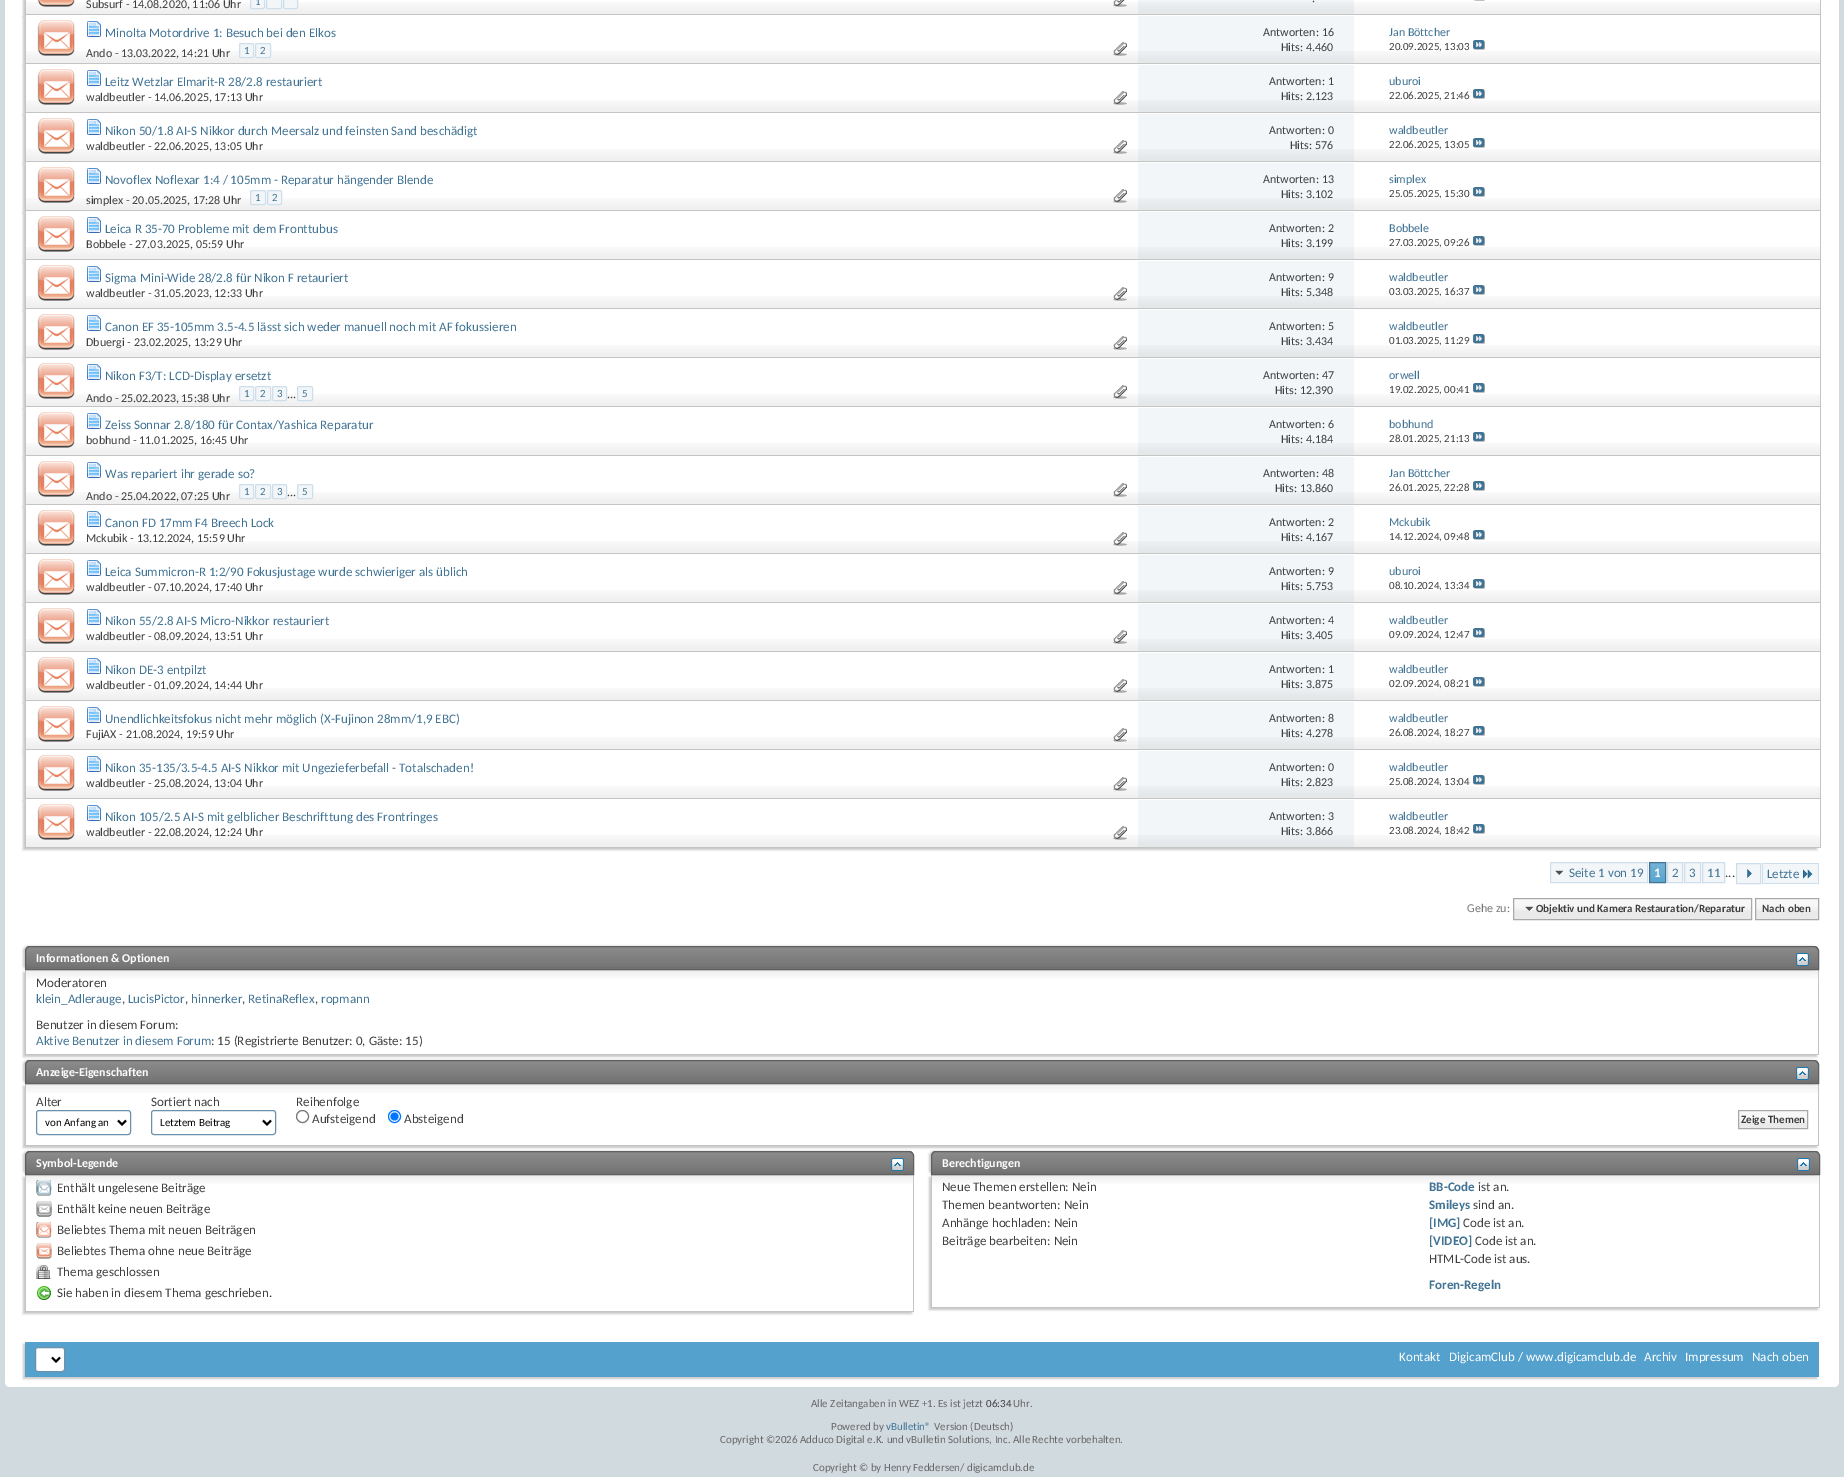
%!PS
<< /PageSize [1844 1477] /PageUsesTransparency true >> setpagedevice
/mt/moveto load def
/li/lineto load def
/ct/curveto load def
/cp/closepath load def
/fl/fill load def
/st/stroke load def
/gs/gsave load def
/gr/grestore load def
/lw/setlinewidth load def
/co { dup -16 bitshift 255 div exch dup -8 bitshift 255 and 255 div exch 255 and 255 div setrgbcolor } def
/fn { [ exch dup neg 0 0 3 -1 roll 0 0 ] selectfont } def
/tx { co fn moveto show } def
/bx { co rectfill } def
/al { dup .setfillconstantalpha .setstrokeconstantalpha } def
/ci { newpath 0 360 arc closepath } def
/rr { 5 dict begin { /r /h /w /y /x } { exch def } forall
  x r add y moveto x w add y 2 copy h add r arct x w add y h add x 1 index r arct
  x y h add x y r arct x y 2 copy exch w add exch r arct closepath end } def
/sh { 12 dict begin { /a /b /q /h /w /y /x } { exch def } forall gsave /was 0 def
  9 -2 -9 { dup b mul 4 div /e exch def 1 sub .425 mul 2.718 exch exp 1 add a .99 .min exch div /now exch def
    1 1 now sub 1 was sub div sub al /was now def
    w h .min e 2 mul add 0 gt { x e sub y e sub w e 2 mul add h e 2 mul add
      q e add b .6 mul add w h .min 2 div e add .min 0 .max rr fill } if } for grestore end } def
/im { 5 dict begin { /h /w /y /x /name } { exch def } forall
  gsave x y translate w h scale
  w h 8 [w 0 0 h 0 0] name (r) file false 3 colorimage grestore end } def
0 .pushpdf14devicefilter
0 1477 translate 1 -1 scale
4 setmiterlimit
0 0 1844 1477 16#D1DADF bx
16#FFFFFF co
5 -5 1834 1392 5 rr fl
gs
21 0 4 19 rectclip
16#C8C8C8 co
23 -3 1794 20 0 1 1 sh
gr
(media/1.raw) 26 2 1794 12 im
1820 0 1 15 16#C4C4C4 bx
25 14 1796 1 16#C4C4C4 bx
25 0 1 15 16#C4C4C4 bx
(media/2.raw) 37 0 38 7 im
16#F2F6F8 co
250.5 -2.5 14 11 1.5 rr gs fl gr
16#CEDFEB co
st
16#F2F6F8 co
266.5 -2.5 15 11 1.5 rr gs fl gr
16#CEDFEB co
st
16#F2F6F8 co
283.5 -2.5 14 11 1.5 rr gs fl gr
16#CEDFEB co
st
(media/3.raw) 1113 0 14 7 im
1138 0 216 14 16#F2F6F8 bx
(media/4.raw) 1138 2 216 12 im
(media/5.raw) 1473 0 12 1 im
16#C8C8C8 co
23 17 1794 49 0 1 1 sh
26 15 1793 48 16#FFFFFF bx
(media/1.raw) 26 51 1794 12 im
1820 15 1 49 16#C4C4C4 bx
25 63 1796 1 16#C4C4C4 bx
25 15 1 49 16#C4C4C4 bx
(media/6.raw) 37 20 38 36 im
(media/7.raw) 87 21 14 16 im
16#F2F6F8 co
239.5 43.5 14 14 1.5 rr gs fl gr
16#CEDFEB co
st
16#F2F6F8 co
255.5 43.5 15 14 1.5 rr gs fl gr
16#CEDFEB co
st
(media/8.raw) 1113 42 14 14 im
1138 16 216 47 16#F2F6F8 bx
(media/4.raw) 1138 51 216 12 im
(media/9.raw) 1473 40 12 10 im
16#C8C8C8 co
23 66 1794 49 0 1 1 sh
26 64 1793 48 16#FFFFFF bx
(media/1.raw) 26 100 1794 12 im
1820 64 1 49 16#C4C4C4 bx
25 112 1796 1 16#C4C4C4 bx
25 64 1 49 16#C4C4C4 bx
(media/6.raw) 37 69 38 36 im
(media/7.raw) 87 70 14 16 im
(media/8.raw) 1113 91 14 14 im
1138 65 216 47 16#F2F6F8 bx
(media/4.raw) 1138 100 216 12 im
(media/9.raw) 1473 89 12 10 im
16#C8C8C8 co
23 115 1794 49 0 1 1 sh
26 113 1793 48 16#FFFFFF bx
(media/1.raw) 26 149 1794 12 im
1820 113 1 49 16#C4C4C4 bx
25 161 1796 1 16#C4C4C4 bx
25 113 1 49 16#C4C4C4 bx
(media/6.raw) 37 118 38 36 im
(media/7.raw) 87 119 14 16 im
(media/8.raw) 1113 140 14 14 im
1138 114 216 47 16#F2F6F8 bx
(media/4.raw) 1138 149 216 12 im
(media/9.raw) 1473 138 12 10 im
16#C8C8C8 co
23 164 1794 49 0 1 1 sh
26 162 1793 48 16#FFFFFF bx
(media/1.raw) 26 198 1794 12 im
1820 162 1 49 16#C4C4C4 bx
25 210 1796 1 16#C4C4C4 bx
25 162 1 49 16#C4C4C4 bx
(media/6.raw) 37 167 38 36 im
(media/7.raw) 87 168 14 16 im
16#F2F6F8 co
250.5 190.5 15 14 1.5 rr gs fl gr
16#CEDFEB co
st
16#F2F6F8 co
267.5 190.5 14 14 1.5 rr gs fl gr
16#CEDFEB co
st
(media/8.raw) 1113 189 14 14 im
1138 163 216 47 16#F2F6F8 bx
(media/4.raw) 1138 198 216 12 im
(media/9.raw) 1473 187 12 10 im
16#C8C8C8 co
23 213 1794 49 0 1 1 sh
26 211 1793 48 16#FFFFFF bx
(media/1.raw) 26 247 1794 12 im
1820 211 1 49 16#C4C4C4 bx
25 259 1796 1 16#C4C4C4 bx
25 211 1 49 16#C4C4C4 bx
(media/6.raw) 37 216 38 36 im
(media/7.raw) 87 217 14 16 im
1138 212 216 47 16#F2F6F8 bx
(media/4.raw) 1138 247 216 12 im
(media/9.raw) 1473 236 12 10 im
16#C8C8C8 co
23 262 1794 49 0 1 1 sh
26 260 1793 48 16#FFFFFF bx
(media/1.raw) 26 296 1794 12 im
1820 260 1 49 16#C4C4C4 bx
25 308 1796 1 16#C4C4C4 bx
25 260 1 49 16#C4C4C4 bx
(media/6.raw) 37 265 38 36 im
(media/7.raw) 87 266 14 16 im
(media/8.raw) 1113 287 14 14 im
1138 261 216 47 16#F2F6F8 bx
(media/4.raw) 1138 296 216 12 im
(media/9.raw) 1473 285 12 10 im
16#C8C8C8 co
23 311 1794 49 0 1 1 sh
26 309 1793 48 16#FFFFFF bx
(media/1.raw) 26 345 1794 12 im
1820 309 1 49 16#C4C4C4 bx
25 357 1796 1 16#C4C4C4 bx
25 309 1 49 16#C4C4C4 bx
(media/6.raw) 37 314 38 36 im
(media/7.raw) 87 315 14 16 im
(media/8.raw) 1113 336 14 14 im
1138 310 216 47 16#F2F6F8 bx
(media/4.raw) 1138 345 216 12 im
(media/9.raw) 1473 334 12 10 im
16#C8C8C8 co
23 360 1794 49 0 1 1 sh
26 358 1793 48 16#FFFFFF bx
(media/1.raw) 26 394 1794 12 im
1820 358 1 49 16#C4C4C4 bx
25 406 1796 1 16#C4C4C4 bx
25 358 1 49 16#C4C4C4 bx
(media/6.raw) 37 363 38 36 im
(media/7.raw) 87 364 14 16 im
16#F2F6F8 co
239.5 386.5 14 14 1.5 rr gs fl gr
16#CEDFEB co
st
16#F2F6F8 co
255.5 386.5 15 14 1.5 rr gs fl gr
16#CEDFEB co
st
16#F2F6F8 co
272.5 386.5 14 14 1.5 rr gs fl gr
16#CEDFEB co
st
16#F2F6F8 co
297.5 386.5 15 14 1.5 rr gs fl gr
16#CEDFEB co
st
(media/8.raw) 1113 385 14 14 im
1138 359 216 47 16#F2F6F8 bx
(media/4.raw) 1138 394 216 12 im
(media/9.raw) 1473 383 12 10 im
16#C8C8C8 co
23 409 1794 49 0 1 1 sh
26 407 1793 48 16#FFFFFF bx
(media/1.raw) 26 443 1794 12 im
1820 407 1 49 16#C4C4C4 bx
25 455 1796 1 16#C4C4C4 bx
25 407 1 49 16#C4C4C4 bx
(media/6.raw) 37 412 38 36 im
(media/7.raw) 87 413 14 16 im
1138 408 216 47 16#F2F6F8 bx
(media/4.raw) 1138 443 216 12 im
(media/9.raw) 1473 432 12 10 im
16#C8C8C8 co
23 458 1794 49 0 1 1 sh
26 456 1793 48 16#FFFFFF bx
(media/1.raw) 26 492 1794 12 im
1820 456 1 49 16#C4C4C4 bx
25 504 1796 1 16#C4C4C4 bx
25 456 1 49 16#C4C4C4 bx
(media/6.raw) 37 461 38 36 im
(media/7.raw) 87 462 14 16 im
16#F2F6F8 co
239.5 484.5 14 14 1.5 rr gs fl gr
16#CEDFEB co
st
16#F2F6F8 co
255.5 484.5 15 14 1.5 rr gs fl gr
16#CEDFEB co
st
16#F2F6F8 co
272.5 484.5 14 14 1.5 rr gs fl gr
16#CEDFEB co
st
16#F2F6F8 co
297.5 484.5 15 14 1.5 rr gs fl gr
16#CEDFEB co
st
(media/8.raw) 1113 483 14 14 im
1138 457 216 47 16#F2F6F8 bx
(media/4.raw) 1138 492 216 12 im
(media/9.raw) 1473 481 12 10 im
16#C8C8C8 co
23 507 1794 49 0 1 1 sh
26 505 1793 48 16#FFFFFF bx
(media/1.raw) 26 541 1794 12 im
1820 505 1 49 16#C4C4C4 bx
25 553 1796 1 16#C4C4C4 bx
25 505 1 49 16#C4C4C4 bx
(media/6.raw) 37 510 38 36 im
(media/7.raw) 87 511 14 16 im
(media/8.raw) 1113 532 14 14 im
1138 506 216 47 16#F2F6F8 bx
(media/4.raw) 1138 541 216 12 im
(media/9.raw) 1473 530 12 10 im
16#C8C8C8 co
23 556 1794 49 0 1 1 sh
26 554 1793 48 16#FFFFFF bx
(media/1.raw) 26 590 1794 12 im
1820 554 1 49 16#C4C4C4 bx
25 602 1796 1 16#C4C4C4 bx
25 554 1 49 16#C4C4C4 bx
(media/6.raw) 37 559 38 36 im
(media/7.raw) 87 560 14 16 im
(media/8.raw) 1113 581 14 14 im
1138 555 216 47 16#F2F6F8 bx
(media/4.raw) 1138 590 216 12 im
(media/9.raw) 1473 579 12 10 im
16#C8C8C8 co
23 605 1794 49 0 1 1 sh
26 603 1793 48 16#FFFFFF bx
(media/1.raw) 26 639 1794 12 im
1820 603 1 49 16#C4C4C4 bx
25 651 1796 1 16#C4C4C4 bx
25 603 1 49 16#C4C4C4 bx
(media/6.raw) 37 608 38 36 im
(media/7.raw) 87 609 14 16 im
(media/8.raw) 1113 630 14 14 im
1138 604 216 47 16#F2F6F8 bx
(media/4.raw) 1138 639 216 12 im
(media/9.raw) 1473 628 12 10 im
16#C8C8C8 co
23 654 1794 49 0 1 1 sh
26 652 1793 48 16#FFFFFF bx
(media/1.raw) 26 688 1794 12 im
1820 652 1 49 16#C4C4C4 bx
25 700 1796 1 16#C4C4C4 bx
25 652 1 49 16#C4C4C4 bx
(media/6.raw) 37 657 38 36 im
(media/7.raw) 87 658 14 16 im
(media/8.raw) 1113 679 14 14 im
1138 653 216 47 16#F2F6F8 bx
(media/4.raw) 1138 688 216 12 im
(media/9.raw) 1473 677 12 10 im
16#C8C8C8 co
23 703 1794 49 0 1 1 sh
26 701 1793 48 16#FFFFFF bx
(media/1.raw) 26 737 1794 12 im
1820 701 1 49 16#C4C4C4 bx
25 749 1796 1 16#C4C4C4 bx
25 701 1 49 16#C4C4C4 bx
(media/6.raw) 37 706 38 36 im
(media/7.raw) 87 707 14 16 im
(media/8.raw) 1113 728 14 14 im
1138 702 216 47 16#F2F6F8 bx
(media/4.raw) 1138 737 216 12 im
(media/9.raw) 1473 726 12 10 im
16#C8C8C8 co
23 752 1794 49 0 1 1 sh
26 750 1793 48 16#FFFFFF bx
(media/1.raw) 26 786 1794 12 im
1820 750 1 49 16#C4C4C4 bx
25 798 1796 1 16#C4C4C4 bx
25 750 1 49 16#C4C4C4 bx
(media/6.raw) 37 755 38 36 im
(media/7.raw) 87 756 14 16 im
(media/8.raw) 1113 777 14 14 im
1138 751 216 47 16#F2F6F8 bx
(media/4.raw) 1138 786 216 12 im
(media/9.raw) 1473 775 12 10 im
16#C8C8C8 co
23 801 1794 49 0 1 1 sh
26 799 1793 48 16#FFFFFF bx
(media/1.raw) 26 835 1794 12 im
1820 799 1 49 16#C4C4C4 bx
25 847 1796 1 16#C4C4C4 bx
25 799 1 49 16#C4C4C4 bx
(media/6.raw) 37 804 38 36 im
(media/7.raw) 87 805 14 16 im
(media/8.raw) 1113 826 14 14 im
1138 800 216 47 16#F2F6F8 bx
(media/4.raw) 1138 835 216 12 im
(media/9.raw) 1473 824 12 10 im
1551 863 96 19 16#F2F6F8 bx
(media/10.raw) 1555 870 9 6 im
16#CEDFEB co
1550.5 862.5 97 20 rectstroke
1650 863 15 19 16#54A1CD bx
(media/11.raw) 1650 863 15 19 im
16#417394 co
1649.5 862.5 16 20 rectstroke
16#F2F6F8 co
1667.5 862.5 mt 1682.5 862.5 li 1682.5 882.5 li 1667.5 882.5 li cp gs fl gr
16#CEDFEB co
st
16#F2F6F8 co
1684.5 862.5 mt 1700.5 862.5 li 1700.5 882.5 li 1684.5 882.5 li cp gs fl gr
16#CEDFEB co
st
16#F2F6F8 co
1702.5 862.5 mt 1724.5 862.5 li 1724.5 882.5 li 1702.5 882.5 li cp gs fl gr
16#CEDFEB co
st
16#F2F6F8 co
1736.5 863.5 mt 1760.5 863.5 li 1760.5 883.5 li 1736.5 883.5 li cp gs fl gr
16#CEDFEB co
st
(media/12.raw) 1747 869 5 9 im
1763 864 55 19 16#F2F6F8 bx
1762 863 57 1 16#CEDFEB bx
1762 883 37 1 16#CEDFEB bx
1762 863 1 21 16#CEDFEB bx
1818 863 1 21 16#CEDFEB bx
1799 883 20 1 16#CEDFEB bx
(media/13.raw) 1803 869 10 10 im
1514 899 237 20 16#E9E9E9 bx
(media/14.raw) 1514 899 237 12 im
1756 899 62 20 16#E9E9E9 bx
(media/15.raw) 1756 899 62 12 im
16#A8A8A8 co
1513.5 898.5 238 21 rectstroke
(media/16.raw) 1525 906 9 6 im
1755.5 898.5 63 21 rectstroke
gs
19 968 mt 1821 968 li 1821 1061 li 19 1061 li cp 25 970 mt 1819 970 li 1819 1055 li 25 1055 li cp eoclip newpath
16#C8C8C8 co
23 972 1794 85 0 1 1 sh
gr
(media/19.raw) 26 970 1792 9 im
1818 970 1 85 16#C4C4C4 bx
25 1054 1794 1 16#C4C4C4 bx
25 970 1 85 16#C4C4C4 bx
16#C8C8C8 co
23 946 1794 24 5 1 1 sh
16#707070 co
30 946 mt 1814 946 li 1817 946 1819 948 1819 951 ct 1819 970 li 25 970 li 25 951 li 25 948 27 946 30 946 ct cp fl
(media/17.raw) 25 947 1794 20 im
16#606060 co
30 946.5 mt 1814 946.5 li 1816.5 946.5 1818.5 948.5 1818.5 951 ct 1818.5 969.5 li 25.5 969.5 li 25.5 951 li 25.5 948.5 27.5 946.5 30 946.5 ct cp st
(media/18.raw) 1796 953 13 13 im
gs
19 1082 mt 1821 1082 li 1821 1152 li 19 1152 li cp 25 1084 mt 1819 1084 li 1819 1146 li 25 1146 li cp eoclip newpath
16#C8C8C8 co
23 1086 1794 62 0 1 1 sh
gr
(media/19.raw) 26 1084 1792 9 im
1818 1084 1 62 16#C4C4C4 bx
25 1145 1794 1 16#C4C4C4 bx
25 1084 1 62 16#C4C4C4 bx
16#C8C8C8 co
23 1060 1794 24 5 1 1 sh
16#707070 co
30 1060 mt 1814 1060 li 1817 1060 1819 1062 1819 1065 ct 1819 1084 li 25 1084 li 25 1065 li 25 1062 27 1060 30 1060 ct cp fl
(media/17.raw) 25 1061 1794 20 im
16#606060 co
30 1060.5 mt 1814 1060.5 li 1816.5 1060.5 1818.5 1062.5 1818.5 1065 ct 1818.5 1083.5 li 25.5 1083.5 li 25.5 1065 li 25.5 1062.5 27.5 1060.5 30 1060.5 ct cp st
(media/18.raw) 1796 1067 13 13 im
16#6B91AB co
36.5 1110.5 94 24 2.5 rr st
16#000000 co
2 lw
118 1120.5 mt 122 1124.5 li 126 1120.5 li st
16#6B91AB co
1 lw
151.5 1110.5 124 24 2.5 rr st
16#000000 co
2 lw
263 1120.5 mt 267 1124.5 li 271 1120.5 li st
16#767676 co
1 lw
302.5 1116.5 6 ci st
16#0075FF co
394.5 1116.5 6 ci st
394.5 1116.5 4 ci fl
1739 1111 68 17 16#E9E9E9 bx
(media/20.raw) 1739 1111 68 12 im
16#A8A8A8 co
1738.5 1110.5 69 18 rectstroke
gs
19 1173 mt 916 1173 li 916 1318 li 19 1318 li cp 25 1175 mt 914 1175 li 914 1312 li 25 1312 li cp eoclip newpath
16#C8C8C8 co
23 1177 889 137 0 1 1 sh
gr
(media/22.raw) 26 1175 887 9 im
913 1175 1 137 16#C4C4C4 bx
25 1311 889 1 16#C4C4C4 bx
25 1175 1 137 16#C4C4C4 bx
16#C8C8C8 co
23 1151 889 24 5 1 1 sh
16#707070 co
30 1151 mt 909 1151 li 912 1151 914 1153 914 1156 ct 914 1175 li 25 1175 li 25 1156 li 25 1153 27 1151 30 1151 ct cp fl
(media/21.raw) 25 1152 889 20 im
16#606060 co
30 1151.5 mt 909 1151.5 li 911.5 1151.5 913.5 1153.5 913.5 1156 ct 913.5 1174.5 li 25.5 1174.5 li 25.5 1156 li 25.5 1153.5 27.5 1151.5 30 1151.5 ct cp st
(media/18.raw) 891 1158 13 13 im
(media/23.raw) 36 1180 16 16 im
(media/24.raw) 36 1201 16 16 im
(media/25.raw) 36 1222 16 16 im
(media/26.raw) 36 1243 16 16 im
(media/27.raw) 36 1264 16 15 im
(media/28.raw) 37 1286 14 14 im
gs
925 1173 mt 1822 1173 li 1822 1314 li 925 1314 li cp 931 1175 mt 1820 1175 li 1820 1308 li 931 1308 li cp eoclip newpath
16#C8C8C8 co
929 1177 889 133 0 1 1 sh
gr
(media/22.raw) 932 1175 887 9 im
1819 1175 1 133 16#C4C4C4 bx
931 1307 889 1 16#C4C4C4 bx
931 1175 1 133 16#C4C4C4 bx
16#C8C8C8 co
929 1151 889 24 5 1 1 sh
16#707070 co
936 1151 mt 1815 1151 li 1818 1151 1820 1153 1820 1156 ct 1820 1175 li 931 1175 li 931 1156 li 931 1153 933 1151 936 1151 ct cp fl
(media/21.raw) 931 1152 889 20 im
16#606060 co
936 1151.5 mt 1815 1151.5 li 1817.5 1151.5 1819.5 1153.5 1819.5 1156 ct 1819.5 1174.5 li 931.5 1174.5 li 931.5 1156 li 931.5 1153.5 933.5 1151.5 936 1151.5 ct cp st
(media/18.raw) 1797 1158 13 13 im
16#C8C8C8 co
23 1344 1794 35 0 1 1 sh
25 1342 1794 35 16#54A1CD bx
16#FFFFFF co
35.5 1347.5 29 24 2.5 rr gs fl gr
16#6B91AB co
st
16#000000 co
2 lw
52 1357.5 mt 56 1361.5 li 60 1357.5 li st
(Subsurf - 14.08.2020, 11:06 Uhr) 86 8 /Carlito-Regular 12 16#3E3E3E tx
(1) 255 5 /Carlito-Regular 11 16#417394 tx
(.) 1312 2 /Carlito-Regular 12 16#3E3E3E tx
(Minolta Motordrive 1: Besuch bei den Elkos) 105 37 /Carlito-Regular 13 16#417394 tx
(Ando - 13.03.2022, 14:21 Uhr) 86 57 /Carlito-Regular 12 16#3E3E3E tx
(1) 244 54 /Carlito-Regular 11 16#417394 tx
(2) 260 54 /Carlito-Regular 11 16#417394 tx
(Antworten: 16) 1263 36 /Carlito-Regular 12 16#3E3E3E tx
(Hits: 4.460) 1281 51 /Carlito-Regular 12 16#3E3E3E tx
(Jan Böttcher) 1389 36 /Carlito-Regular 12 16#417394 tx
(20.09.2025, 13:03) 1389 50 /Carlito-Regular 11 16#3E3E3E tx
(Leitz Wetzlar Elmarit-R 28/2.8 restauriert) 105 86 /Carlito-Regular 13 16#417394 tx
(waldbeutler - 14.06.2025, 17:13 Uhr) 86 101 /Carlito-Regular 12 16#3E3E3E tx
(Antworten: 1) 1269 85 /Carlito-Regular 12 16#3E3E3E tx
(Hits: 2.123) 1281 100 /Carlito-Regular 12 16#3E3E3E tx
(uburoi) 1389 85 /Carlito-Regular 12 16#417394 tx
(22.06.2025, 21:46) 1389 99 /Carlito-Regular 11 16#3E3E3E tx
(Nikon 50/1.8 AI-S Nikkor durch Meersalz und feinsten Sand beschädigt) 105 135 /Carlito-Regular 13 16#417394 tx
(waldbeutler - 22.06.2025, 13:05 Uhr) 86 150 /Carlito-Regular 12 16#3E3E3E tx
(Antworten: 0) 1269 134 /Carlito-Regular 12 16#3E3E3E tx
(Hits: 576) 1290 149 /Carlito-Regular 12 16#3E3E3E tx
(waldbeutler) 1389 134 /Carlito-Regular 12 16#417394 tx
(22.06.2025, 13:05) 1389 148 /Carlito-Regular 11 16#3E3E3E tx
(Novoflex Noflexar 1:4 / 105mm - Reparatur hängender Blende) 105 184 /Carlito-Regular 13 16#417394 tx
(simplex - 20.05.2025, 17:28 Uhr) 86 204 /Carlito-Regular 12 16#3E3E3E tx
(1) 255 201 /Carlito-Regular 11 16#417394 tx
(2) 272 201 /Carlito-Regular 11 16#417394 tx
(Antworten: 13) 1263 183 /Carlito-Regular 12 16#3E3E3E tx
(Hits: 3.102) 1281 198 /Carlito-Regular 12 16#3E3E3E tx
(simplex) 1389 183 /Carlito-Regular 12 16#417394 tx
(25.05.2025, 15:30) 1389 197 /Carlito-Regular 11 16#3E3E3E tx
(Leica R 35-70 Probleme mit dem Fronttubus) 105 233 /Carlito-Regular 13 16#417394 tx
(Bobbele - 27.03.2025, 05:59 Uhr) 86 248 /Carlito-Regular 12 16#3E3E3E tx
(Antworten: 2) 1269 232 /Carlito-Regular 12 16#3E3E3E tx
(Hits: 3.199) 1281 247 /Carlito-Regular 12 16#3E3E3E tx
(Bobbele) 1389 232 /Carlito-Regular 12 16#417394 tx
(27.03.2025, 09:26) 1389 246 /Carlito-Regular 11 16#3E3E3E tx
(Sigma Mini-Wide 28/2.8 für Nikon F retauriert) 105 282 /Carlito-Regular 13 16#417394 tx
(waldbeutler - 31.05.2023, 12:33 Uhr) 86 297 /Carlito-Regular 12 16#3E3E3E tx
(Antworten: 9) 1269 281 /Carlito-Regular 12 16#3E3E3E tx
(Hits: 5.348) 1281 296 /Carlito-Regular 12 16#3E3E3E tx
(waldbeutler) 1389 281 /Carlito-Regular 12 16#417394 tx
(03.03.2025, 16:37) 1389 295 /Carlito-Regular 11 16#3E3E3E tx
(Canon EF 35-105mm 3.5-4.5 lässt sich weder manuell noch mit AF fokussieren) 105 331 /Carlito-Regular 13 16#417394 tx
(Dbuergi - 23.02.2025, 13:29 Uhr) 86 346 /Carlito-Regular 12 16#3E3E3E tx
(Antworten: 5) 1269 330 /Carlito-Regular 12 16#3E3E3E tx
(Hits: 3.434) 1281 345 /Carlito-Regular 12 16#3E3E3E tx
(waldbeutler) 1389 330 /Carlito-Regular 12 16#417394 tx
(01.03.2025, 11:29) 1389 344 /Carlito-Regular 11 16#3E3E3E tx
(Nikon F3/T: LCD-Display ersetzt) 105 380 /Carlito-Regular 13 16#417394 tx
(Ando - 25.02.2023, 15:38 Uhr) 86 402 /Carlito-Regular 12 16#3E3E3E tx
(1) 244 397 /Carlito-Regular 11 16#417394 tx
(2) 260 397 /Carlito-Regular 11 16#417394 tx
(3) 277 397 /Carlito-Regular 11 16#417394 tx
(...) 287 398 /Carlito-Regular 12 16#3E3E3E tx
(5) 302 397 /Carlito-Regular 11 16#417394 tx
(Antworten: 47) 1263 379 /Carlito-Regular 12 16#3E3E3E tx
(Hits: 12.390) 1275 394 /Carlito-Regular 12 16#3E3E3E tx
(orwell) 1389 379 /Carlito-Regular 12 16#417394 tx
(19.02.2025, 00:41) 1389 393 /Carlito-Regular 11 16#3E3E3E tx
(Zeiss Sonnar 2.8/180 für Contax/Yashica Reparatur) 105 429 /Carlito-Regular 13 16#417394 tx
(bobhund - 11.01.2025, 16:45 Uhr) 86 444 /Carlito-Regular 12 16#3E3E3E tx
(Antworten: 6) 1269 428 /Carlito-Regular 12 16#3E3E3E tx
(Hits: 4.184) 1281 443 /Carlito-Regular 12 16#3E3E3E tx
(bobhund) 1389 428 /Carlito-Regular 12 16#417394 tx
(28.01.2025, 21:13) 1389 442 /Carlito-Regular 11 16#3E3E3E tx
(Was repariert ihr gerade so?) 105 478 /Carlito-Regular 13 16#417394 tx
(Ando - 25.04.2022, 07:25 Uhr) 86 500 /Carlito-Regular 12 16#3E3E3E tx
(1) 244 495 /Carlito-Regular 11 16#417394 tx
(2) 260 495 /Carlito-Regular 11 16#417394 tx
(3) 277 495 /Carlito-Regular 11 16#417394 tx
(...) 287 496 /Carlito-Regular 12 16#3E3E3E tx
(5) 302 495 /Carlito-Regular 11 16#417394 tx
(Antworten: 48) 1263 477 /Carlito-Regular 12 16#3E3E3E tx
(Hits: 13.860) 1275 492 /Carlito-Regular 12 16#3E3E3E tx
(Jan Böttcher) 1389 477 /Carlito-Regular 12 16#417394 tx
(26.01.2025, 22:28) 1389 491 /Carlito-Regular 11 16#3E3E3E tx
(Canon FD 17mm F4 Breech Lock) 105 527 /Carlito-Regular 13 16#417394 tx
(Mckubik - 13.12.2024, 15:59 Uhr) 86 542 /Carlito-Regular 12 16#3E3E3E tx
(Antworten: 2) 1269 526 /Carlito-Regular 12 16#3E3E3E tx
(Hits: 4.167) 1281 541 /Carlito-Regular 12 16#3E3E3E tx
(Mckubik) 1389 526 /Carlito-Regular 12 16#417394 tx
(14.12.2024, 09:48) 1389 540 /Carlito-Regular 11 16#3E3E3E tx
(Leica Summicron-R 1:2/90 Fokusjustage wurde schwieriger als üblich) 105 576 /Carlito-Regular 13 16#417394 tx
(waldbeutler - 07.10.2024, 17:40 Uhr) 86 591 /Carlito-Regular 12 16#3E3E3E tx
(Antworten: 9) 1269 575 /Carlito-Regular 12 16#3E3E3E tx
(Hits: 5.753) 1281 590 /Carlito-Regular 12 16#3E3E3E tx
(uburoi) 1389 575 /Carlito-Regular 12 16#417394 tx
(08.10.2024, 13:34) 1389 589 /Carlito-Regular 11 16#3E3E3E tx
(Nikon 55/2.8 AI-S Micro-Nikkor restauriert) 105 625 /Carlito-Regular 13 16#417394 tx
(waldbeutler - 08.09.2024, 13:51 Uhr) 86 640 /Carlito-Regular 12 16#3E3E3E tx
(Antworten: 4) 1269 624 /Carlito-Regular 12 16#3E3E3E tx
(Hits: 3.405) 1281 639 /Carlito-Regular 12 16#3E3E3E tx
(waldbeutler) 1389 624 /Carlito-Regular 12 16#417394 tx
(09.09.2024, 12:47) 1389 638 /Carlito-Regular 11 16#3E3E3E tx
(Nikon DE-3 entpilzt) 105 674 /Carlito-Regular 13 16#417394 tx
(waldbeutler - 01.09.2024, 14:44 Uhr) 86 689 /Carlito-Regular 12 16#3E3E3E tx
(Antworten: 1) 1269 673 /Carlito-Regular 12 16#3E3E3E tx
(Hits: 3.875) 1281 688 /Carlito-Regular 12 16#3E3E3E tx
(waldbeutler) 1389 673 /Carlito-Regular 12 16#417394 tx
(02.09.2024, 08:21) 1389 687 /Carlito-Regular 11 16#3E3E3E tx
(Unendlichkeitsfokus nicht mehr möglich \(X-Fujinon 28mm/1,9 EBC\)) 105 723 /Carlito-Regular 13 16#417394 tx
(FujiAX - 21.08.2024, 19:59 Uhr) 86 738 /Carlito-Regular 12 16#3E3E3E tx
(Antworten: 8) 1269 722 /Carlito-Regular 12 16#3E3E3E tx
(Hits: 4.278) 1281 737 /Carlito-Regular 12 16#3E3E3E tx
(waldbeutler) 1389 722 /Carlito-Regular 12 16#417394 tx
(26.08.2024, 18:27) 1389 736 /Carlito-Regular 11 16#3E3E3E tx
(Nikon 35-135/3.5-4.5 AI-S Nikkor mit Ungezieferbefall - Totalschaden!) 105 772 /Carlito-Regular 13 16#417394 tx
(waldbeutler - 25.08.2024, 13:04 Uhr) 86 787 /Carlito-Regular 12 16#3E3E3E tx
(Antworten: 0) 1269 771 /Carlito-Regular 12 16#3E3E3E tx
(Hits: 2.823) 1281 786 /Carlito-Regular 12 16#3E3E3E tx
(waldbeutler) 1389 771 /Carlito-Regular 12 16#417394 tx
(25.08.2024, 13:04) 1389 785 /Carlito-Regular 11 16#3E3E3E tx
(Nikon 105/2.5 AI-S mit gelblicher Beschrifttung des Frontringes) 105 821 /Carlito-Regular 13 16#417394 tx
(waldbeutler - 22.08.2024, 12:24 Uhr) 86 836 /Carlito-Regular 12 16#3E3E3E tx
(Antworten: 3) 1269 820 /Carlito-Regular 12 16#3E3E3E tx
(Hits: 3.866) 1281 835 /Carlito-Regular 12 16#3E3E3E tx
(waldbeutler) 1389 820 /Carlito-Regular 12 16#417394 tx
(23.08.2024, 18:42) 1389 834 /Carlito-Regular 11 16#3E3E3E tx
(Seite 1 von 19) 1569 877 /Carlito-Regular 13 16#417394 tx
(1) 1654 877 /Carlito-Bold 13 16#FFFFFF tx
(2) 1672 877 /Carlito-Regular 13 16#417394 tx
(3) 1689 877 /Carlito-Regular 13 16#417394 tx
(11) 1707 877 /Carlito-Regular 13 16#417394 tx
(...) 1725 877 /Carlito-Regular 13 16#3E3E3E tx
(Letzte) 1767 878 /Carlito-Regular 13 16#417394 tx
(Gehe zu:) 1467 912 /Carlito-Regular 12 16#777777 tx
(Objektiv und Kamera Restauration/Reparatur) 1536 912 /Carlito-Bold 11 16#3E3E3E tx
(Nach oben) 1762 912 /Carlito-Bold 11 16#3E3E3E tx
(Informationen & Optionen) 36 962 /Carlito-Bold 12 16#FFFFFF tx
(Moderatoren) 36 987 /Carlito-Regular 13 16#3E3E3E tx
(klein_Adlerauge) 36 1003 /Carlito-Regular 13 16#417394 tx
(,) 122 1003 /Carlito-Regular 13 16#3E3E3E tx
(LucisPictor) 128 1003 /Carlito-Regular 13 16#417394 tx
(,) 185 1003 /Carlito-Regular 13 16#3E3E3E tx
(hinnerker) 191 1003 /Carlito-Regular 13 16#417394 tx
(,) 242 1003 /Carlito-Regular 13 16#3E3E3E tx
(RetinaReflex) 248 1003 /Carlito-Regular 13 16#417394 tx
(,) 315 1003 /Carlito-Regular 13 16#3E3E3E tx
(ropmann) 321 1003 /Carlito-Regular 13 16#417394 tx
(Benutzer in diesem Forum:) 36 1029 /Carlito-Regular 13 16#3E3E3E tx
(Aktive Benutzer in diesem Forum) 36 1045 /Carlito-Regular 13 16#417394 tx
(: 15 \(Registrierte Benutzer: 0, Gäste: 15\)) 211 1045 /Carlito-Regular 13 16#3E3E3E tx
(Anzeige-Eigenschaften) 36 1076 /Carlito-Bold 12 16#FFFFFF tx
(Alter) 36 1106 /Carlito-Regular 13 16#3E3E3E tx
(von Anfang an) 45 1126 /Carlito-Regular 11 16#000000 tx
(Sortiert nach) 151 1106 /Carlito-Regular 13 16#3E3E3E tx
(Letztem Beitrag) 160 1126 /Carlito-Regular 11 16#000000 tx
(Reihenfolge) 296 1106 /Carlito-Regular 13 16#3E3E3E tx
(Aufsteigend) 312 1123 /Carlito-Regular 13 16#3E3E3E tx
(Absteigend) 404 1123 /Carlito-Regular 13 16#3E3E3E tx
(Zeige Themen) 1741 1123 /Carlito-Bold 11 16#3E3E3E tx
(Symbol-Legende) 36 1167 /Carlito-Bold 12 16#FFFFFF tx
(Enthält ungelesene Beiträge) 57 1192 /Carlito-Regular 13 16#3E3E3E tx
(Enthält keine neuen Beiträge) 57 1213 /Carlito-Regular 13 16#3E3E3E tx
(Beliebtes Thema mit neuen Beiträgen) 57 1234 /Carlito-Regular 13 16#3E3E3E tx
(Beliebtes Thema ohne neue Beiträge) 57 1255 /Carlito-Regular 13 16#3E3E3E tx
(Thema geschlossen) 57 1276 /Carlito-Regular 13 16#3E3E3E tx
(Sie haben in diesem Thema geschrieben.) 57 1297 /Carlito-Regular 13 16#3E3E3E tx
(Berechtigungen) 942 1167 /Carlito-Bold 12 16#FFFFFF tx
(Neue Themen erstellen: Nein) 942 1191 /Carlito-Regular 13 16#3E3E3E tx
(Themen beantworten: Nein) 942 1209 /Carlito-Regular 13 16#3E3E3E tx
(Anhänge hochladen: Nein) 942 1227 /Carlito-Regular 13 16#3E3E3E tx
(Beiträge bearbeiten: Nein) 942 1245 /Carlito-Regular 13 16#3E3E3E tx
(BB-Code) 1429 1191 /Carlito-Bold 13 16#417394 tx
(ist an.) 1478 1191 /Carlito-Regular 13 16#3E3E3E tx
(Smileys) 1429 1209 /Carlito-Bold 13 16#417394 tx
(sind an.) 1473 1209 /Carlito-Regular 13 16#3E3E3E tx
([IMG]) 1429 1227 /Carlito-Bold 13 16#417394 tx
(Code ist an.) 1463 1227 /Carlito-Regular 13 16#3E3E3E tx
([VIDEO]) 1429 1245 /Carlito-Bold 13 16#417394 tx
(Code ist an.) 1475 1245 /Carlito-Regular 13 16#3E3E3E tx
(HTML-Code ist aus.) 1429 1263 /Carlito-Regular 13 16#3E3E3E tx
(Foren-Regeln) 1429 1289 /Carlito-Bold 13 16#417394 tx
(Kontakt) 1399 1361 /Carlito-Regular 13 16#FFFFFF tx
(DigicamClub / www.digicamclub.de) 1449 1361 /Carlito-Regular 13 16#FFFFFF tx
(Archiv) 1644 1361 /Carlito-Regular 13 16#FFFFFF tx
(Impressum) 1685 1361 /Carlito-Regular 13 16#FFFFFF tx
(Nach oben) 1752 1361 /Carlito-Regular 13 16#FFFFFF tx
(Alle Zeitangaben in WEZ +1. Es ist jetzt) 811 1407 /Carlito-Regular 11 16#666666 tx
(06:34) 986 1407 /Carlito-Regular 11 16#3E3E3E tx
(Uhr.) 1013 1407 /Carlito-Regular 11 16#666666 tx
(Powered by) 831 1430 /Carlito-Regular 11 16#666666 tx
(vBulletin®) 886 1430 /Carlito-Regular 11 16#417394 tx
(Version \(Deutsch\)) 934 1430 /Carlito-Regular 11 16#666666 tx
(Copyright ©2026 Adduco Digital e.K. und vBulletin Solutions, Inc. Alle Rechte vorbehalten.) 720 1443 /Carlito-Regular 11 16#666666 tx
(Copyright © by Henry Feddersen/ digicamclub.de) 813 1471 /Carlito-Regular 11 16#666666 tx
.poppdf14devicefilter showpage
